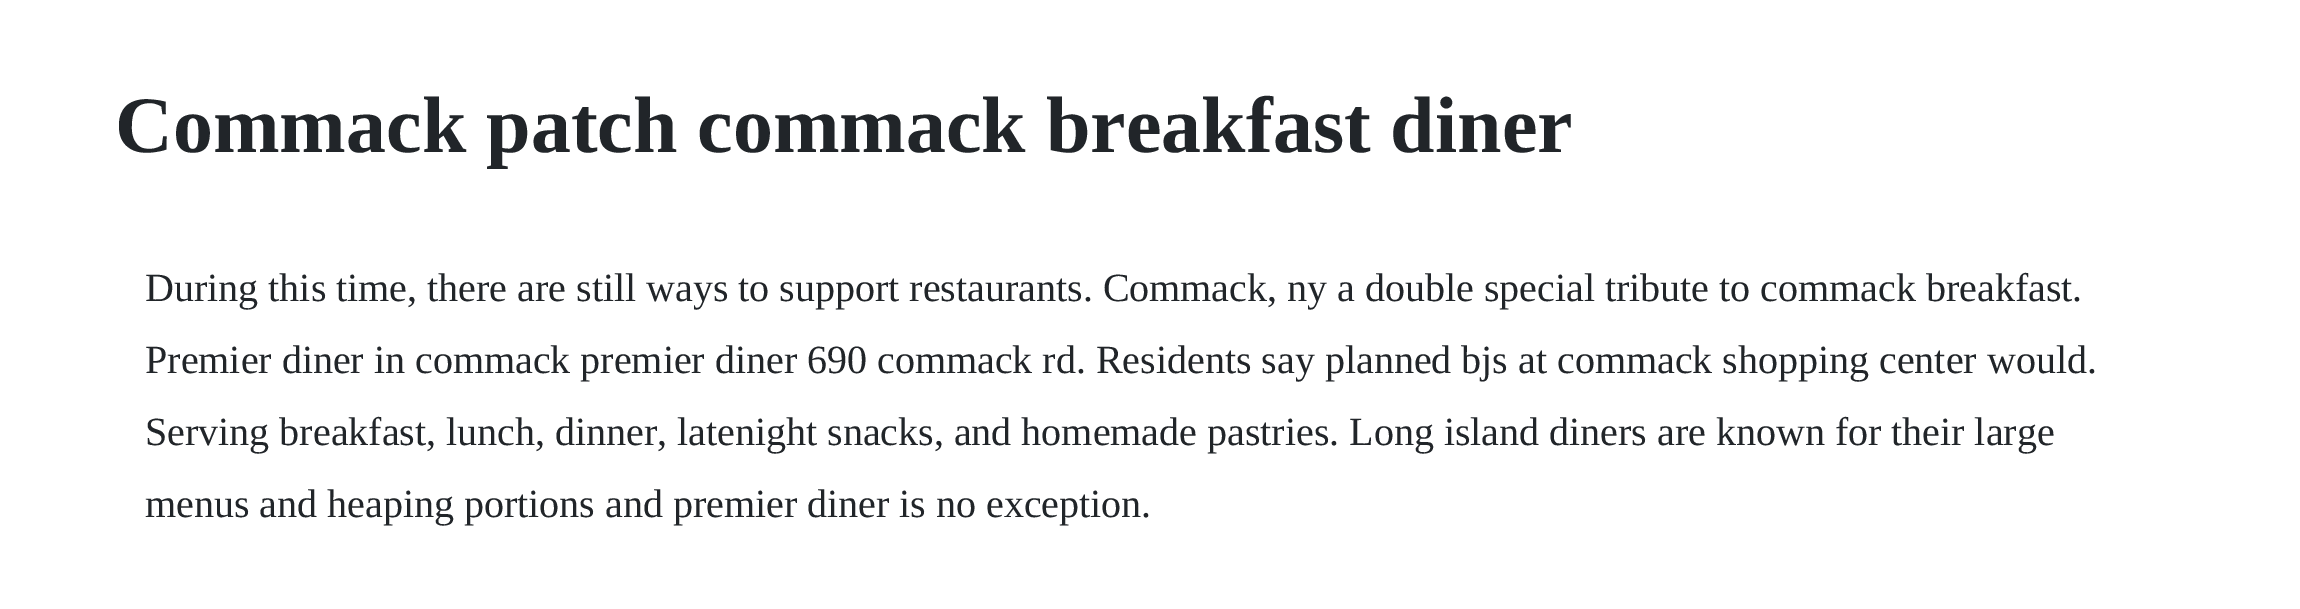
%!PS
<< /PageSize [2300 609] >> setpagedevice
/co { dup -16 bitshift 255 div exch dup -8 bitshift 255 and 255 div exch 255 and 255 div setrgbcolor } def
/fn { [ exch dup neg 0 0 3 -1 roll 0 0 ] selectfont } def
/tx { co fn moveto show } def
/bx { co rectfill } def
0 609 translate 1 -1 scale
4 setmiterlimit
0 0 2300 609 16#FFFFFF bx
(Commack patch commack breakfast diner) 115 152 /LiberationSerif-Bold 80 16#212529 tx
(During this time, there are still ways to support restaurants. Commack, ny a double special tribute to commack breakfast.) 145 301 /LiberationSerif-Regular 40 16#212529 tx
(Premier diner in commack premier diner 690 commack rd. Residents say planned bjs at commack shopping center would.) 145 373 /LiberationSerif-Regular 40 16#212529 tx
(Serving breakfast, lunch, dinner, latenight snacks, and homemade pastries. Long island diners are known for their large) 145 445 /LiberationSerif-Regular 40 16#212529 tx
(menus and heaping portions and premier diner is no exception.) 145 517 /LiberationSerif-Regular 40 16#212529 tx
showpage
